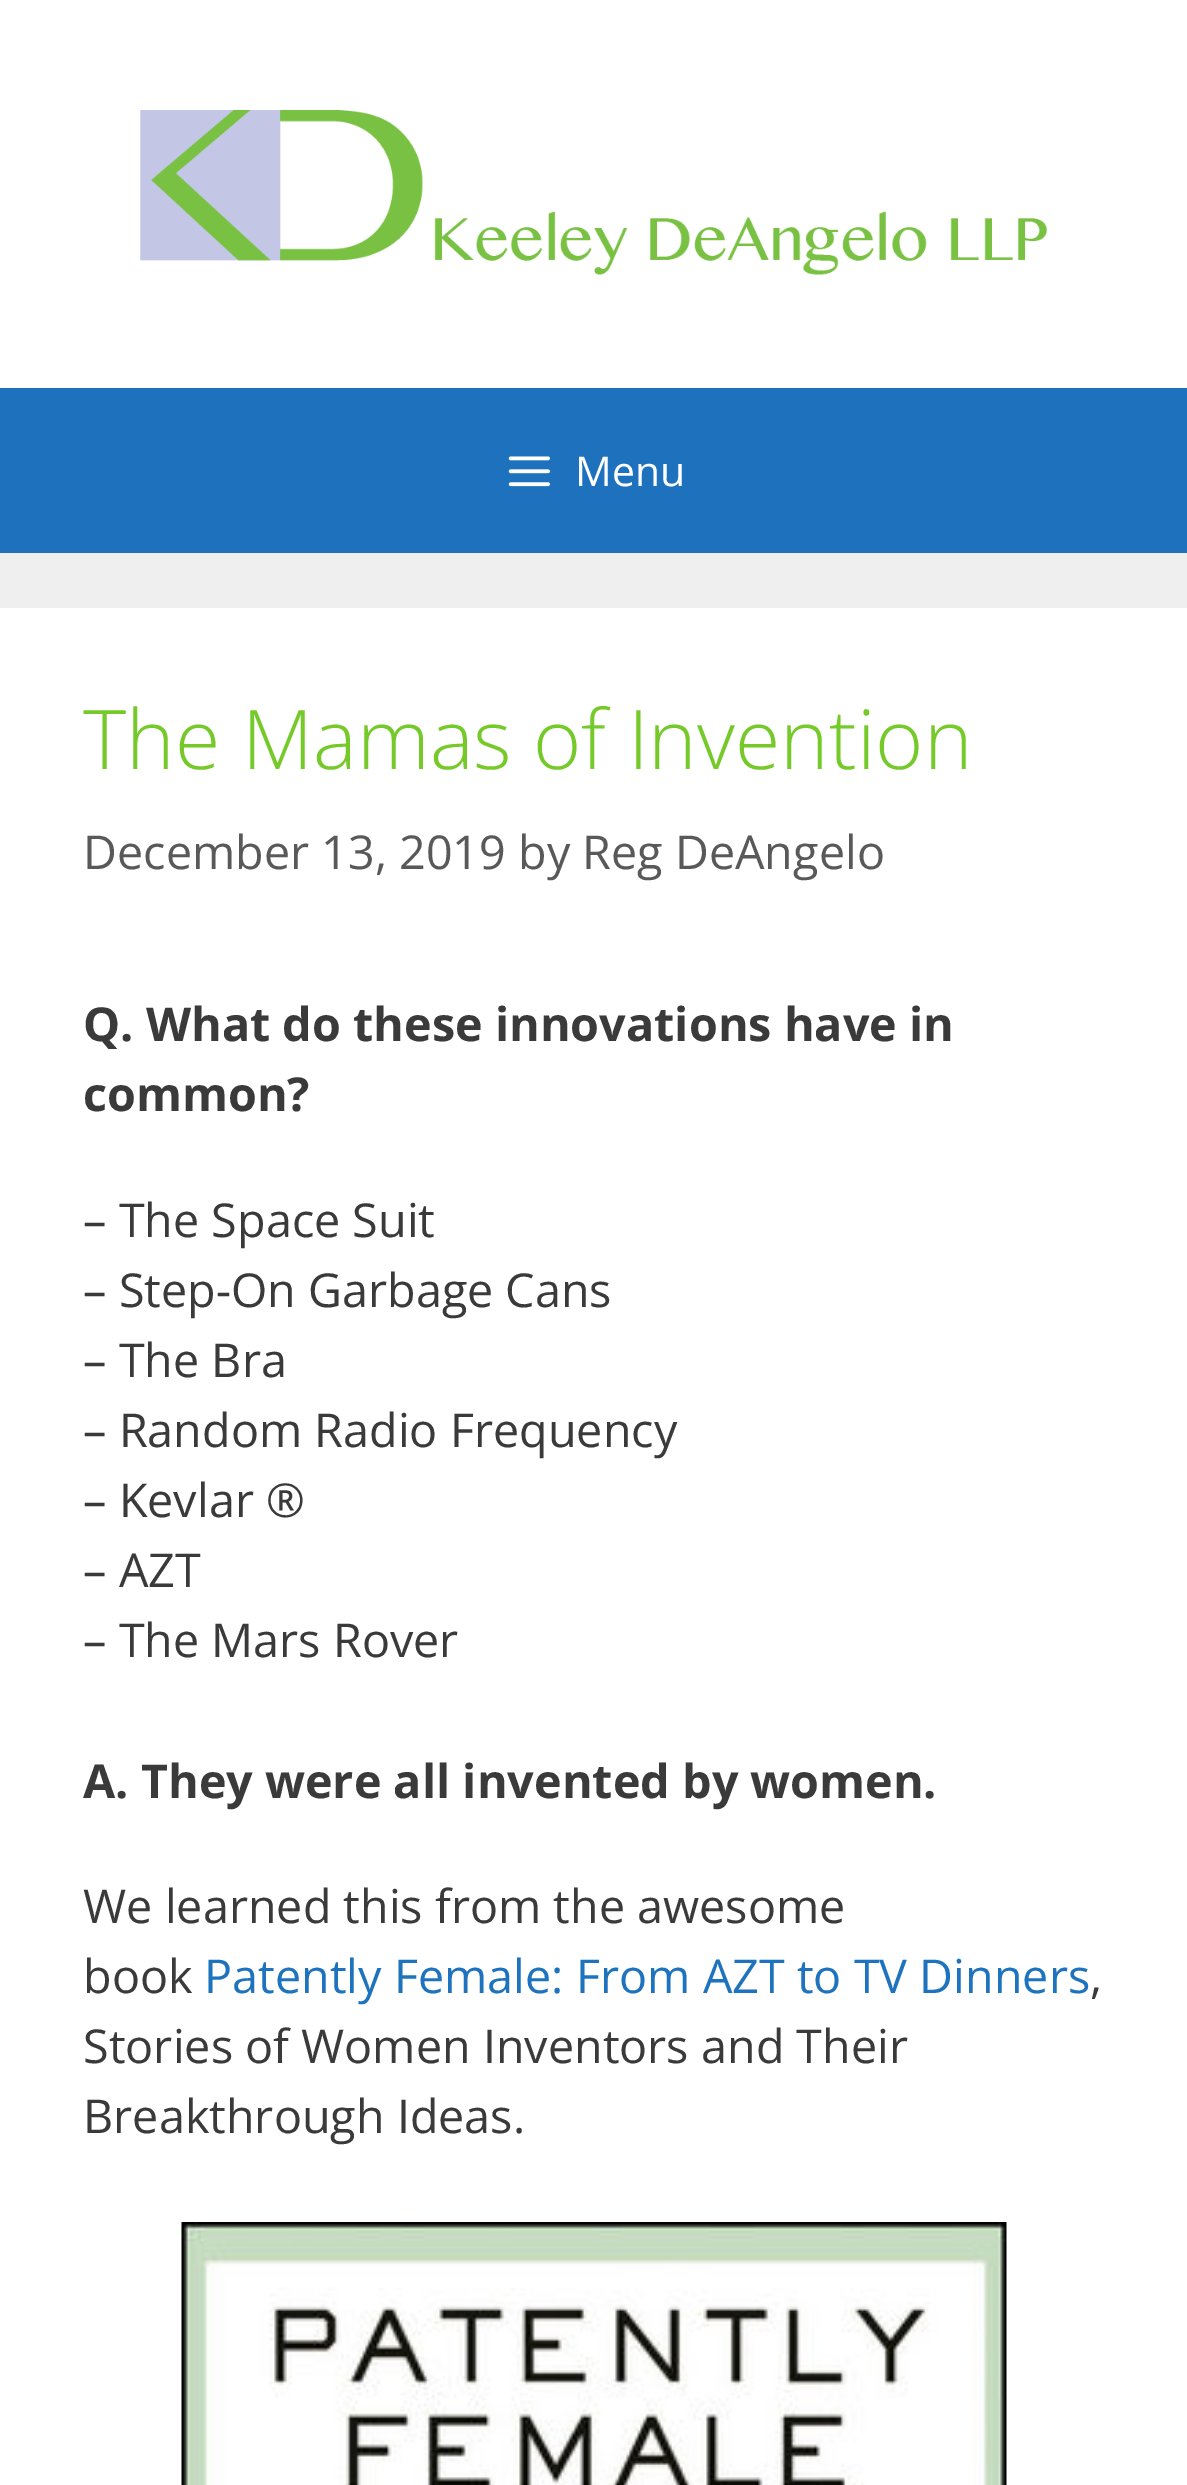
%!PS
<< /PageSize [1187 2485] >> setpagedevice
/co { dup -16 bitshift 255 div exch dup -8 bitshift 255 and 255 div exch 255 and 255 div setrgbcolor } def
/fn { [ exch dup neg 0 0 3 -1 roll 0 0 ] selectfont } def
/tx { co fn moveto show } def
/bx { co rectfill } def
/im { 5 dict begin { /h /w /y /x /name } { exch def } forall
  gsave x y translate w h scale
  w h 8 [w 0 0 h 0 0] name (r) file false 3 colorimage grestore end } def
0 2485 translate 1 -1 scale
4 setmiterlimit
0 0 1187 2485 16#EFEFEF bx
0 0 1187 388 16#FFFFFF bx
(media/1.raw) 140 110 907 165 im
0 388 1187 165 16#1E72BD bx
(media/2.raw) 508 456 42 31 im
0 608 1187 1877 16#FFFFFF bx
(media/3.raw) 181 2222 826 263 im
(Menu) 575 486 /OpenSans-Regular 41 16#FFFFFF tx
(The Mamas of Invention) 83 769 /OpenSans-Light 82.5 16#75CA2A tx
(December 13, 2019 by Reg DeAngelo) 83 869 /OpenSans-Regular 46.75 16#595959 tx
(Q. What do these innovations have in) 83 1041 /OpenSans-Bold 46.75 16#3A3A3A tx
(common?) 83 1111 /OpenSans-Bold 46.75 16#3A3A3A tx
(– The Space Suit) 83 1237 /OpenSans-Regular 46.75 16#3A3A3A tx
(– Step-On Garbage Cans) 83 1307 /OpenSans-Regular 46.75 16#3A3A3A tx
(– The Bra) 83 1377 /OpenSans-Regular 46.75 16#3A3A3A tx
(– Random Radio Frequency) 83 1447 /OpenSans-Regular 46.75 16#3A3A3A tx
(– Kevlar ®) 83 1517 /OpenSans-Regular 46.75 16#3A3A3A tx
(– AZT) 83 1587 /OpenSans-Regular 46.75 16#3A3A3A tx
(– The Mars Rover) 83 1657 /OpenSans-Regular 46.75 16#3A3A3A tx
(A. They were all invented by women.) 83 1798 /OpenSans-Bold 46.75 16#3A3A3A tx
(We learned this from the awesome) 83 1923 /OpenSans-Regular 46.75 16#3A3A3A tx
(book) 83 1993 /OpenSans-Regular 46.75 16#3A3A3A tx
(Patently Female: From AZT to TV Dinners) 204 1993 /OpenSans-Regular 46.75 16#1E73BE tx
(,) 1090 1993 /OpenSans-Regular 46.75 16#3A3A3A tx
(Stories of Women Inventors and Their) 83 2063 /OpenSans-Regular 46.75 16#3A3A3A tx
(Breakthrough Ideas.) 83 2133 /OpenSans-Regular 46.75 16#3A3A3A tx
showpage
